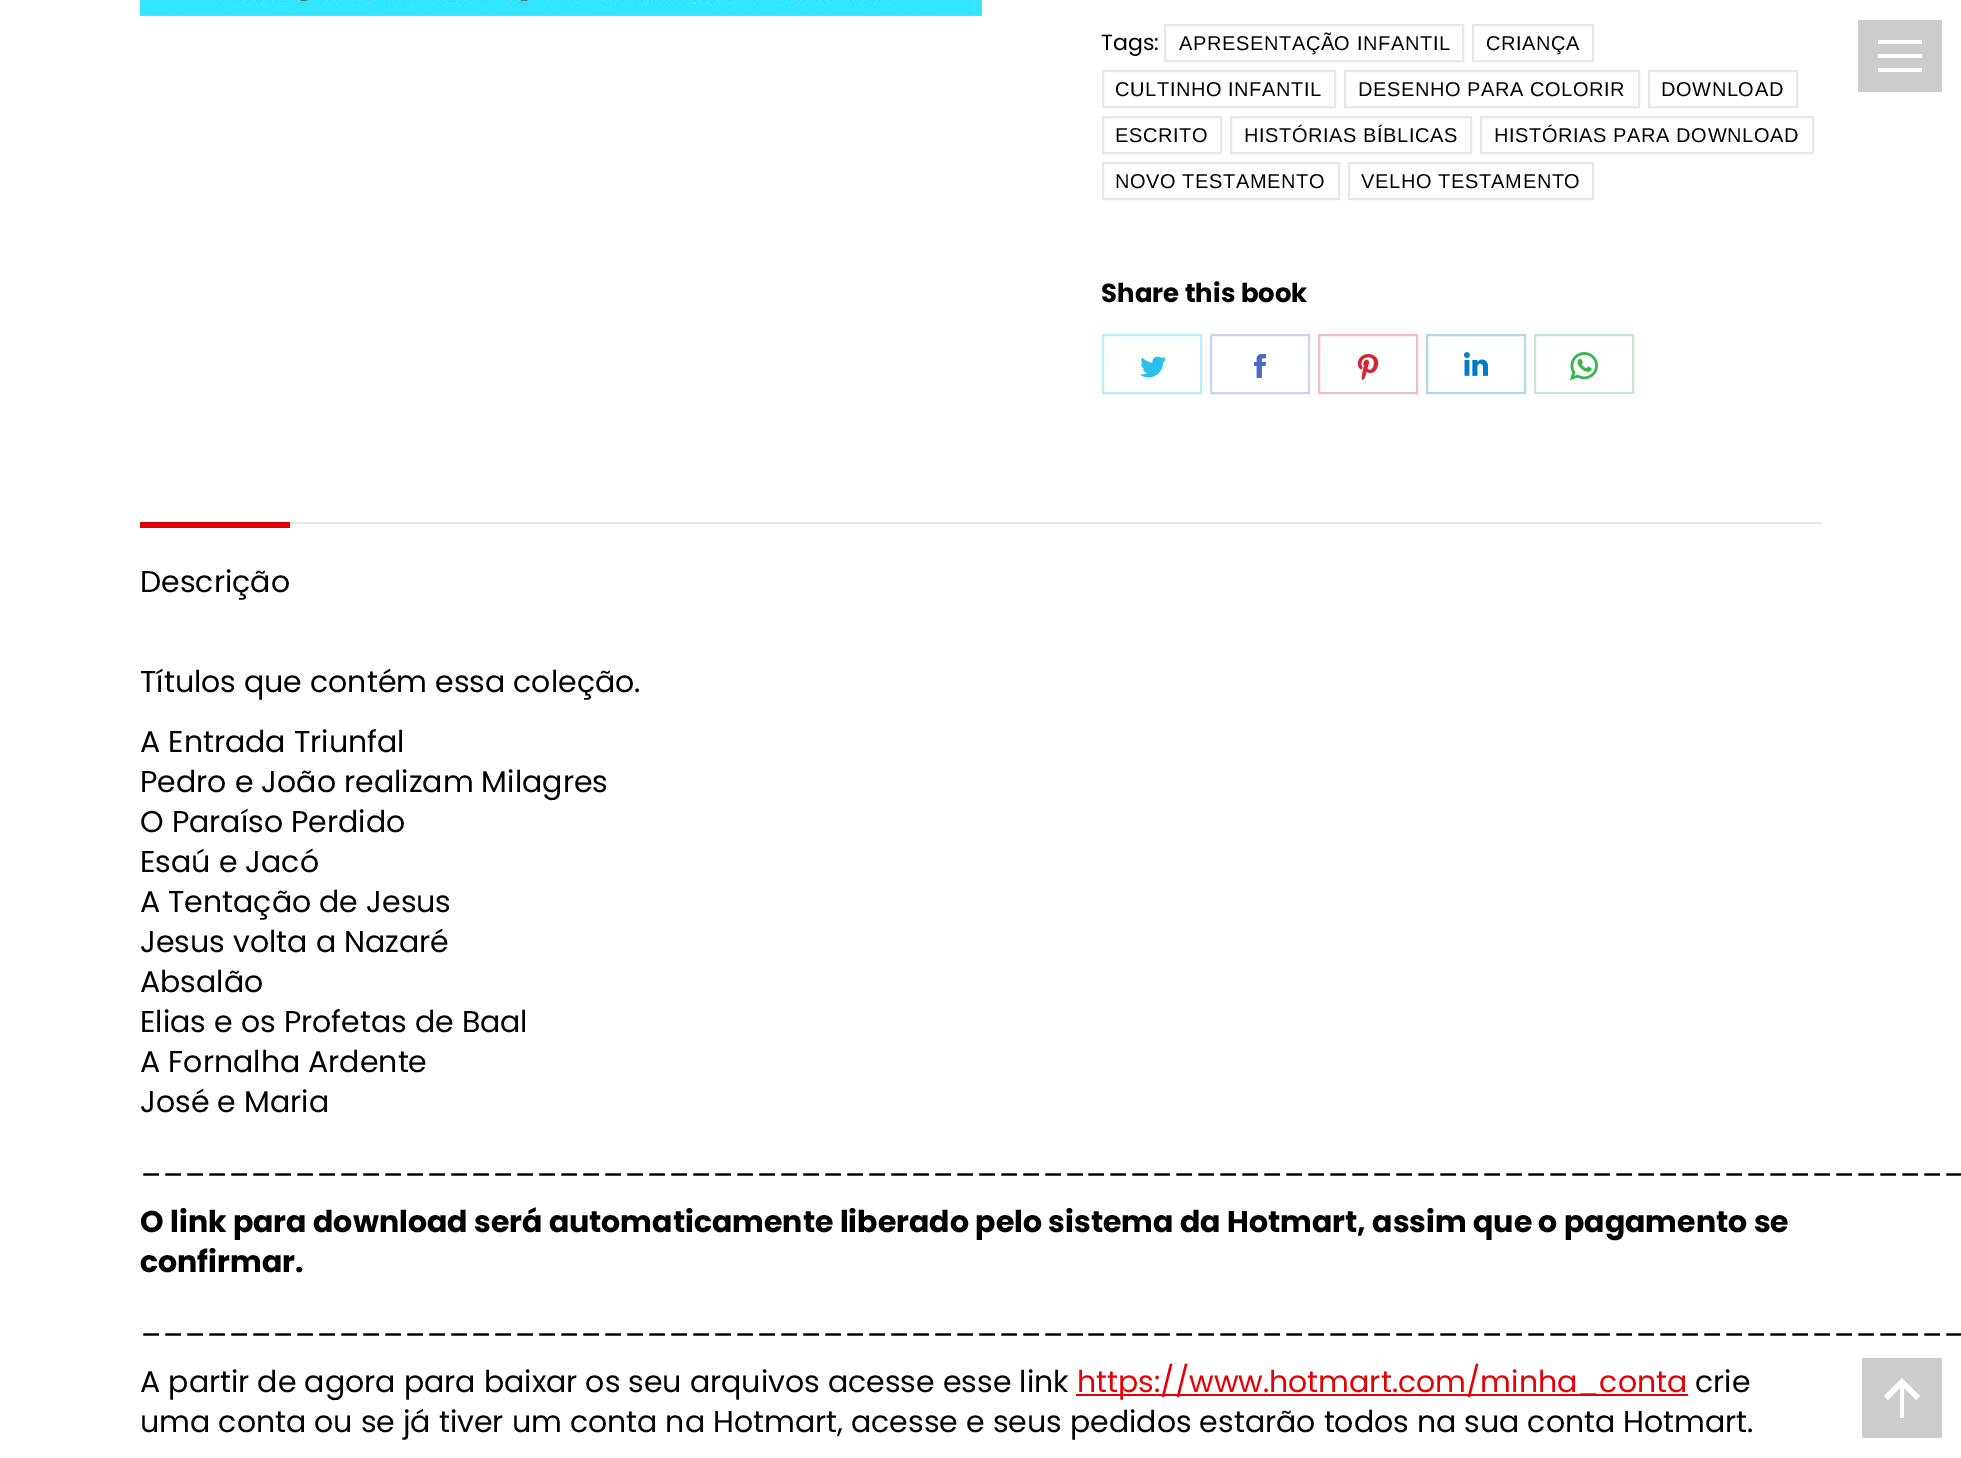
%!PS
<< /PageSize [1961 1458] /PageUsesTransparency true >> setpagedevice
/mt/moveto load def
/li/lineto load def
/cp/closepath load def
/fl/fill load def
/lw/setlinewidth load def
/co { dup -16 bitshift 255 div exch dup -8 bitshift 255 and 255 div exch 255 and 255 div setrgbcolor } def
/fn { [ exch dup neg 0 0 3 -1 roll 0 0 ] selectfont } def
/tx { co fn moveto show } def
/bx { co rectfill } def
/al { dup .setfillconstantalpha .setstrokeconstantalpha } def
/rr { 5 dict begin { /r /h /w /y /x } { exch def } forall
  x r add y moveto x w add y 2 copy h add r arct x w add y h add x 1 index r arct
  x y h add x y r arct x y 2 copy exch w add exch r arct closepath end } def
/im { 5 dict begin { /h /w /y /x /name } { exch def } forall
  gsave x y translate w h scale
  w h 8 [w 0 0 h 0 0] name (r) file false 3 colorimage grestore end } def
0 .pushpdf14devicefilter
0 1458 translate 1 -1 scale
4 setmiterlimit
0 0 1961 1458 16#FFFFFF bx
16#CCCCCC co
1858 20 84 72 2 rr fl
1878 40 44 4 16#FFFFFF bx
1878 54 44 4 16#FFFFFF bx
1878 68 44 4 16#FFFFFF bx
(media/1.raw) 140 0 842 16 im
16#E7E7E7 co
2 lw
1165 25 298 36 rectstroke
1473 25 120 36 rectstroke
1103 71 232 36 rectstroke
1345 71 294 36 rectstroke
1649 71 148 36 rectstroke
1103 117 118 36 rectstroke
1231 117 240 36 rectstroke
1481 117 332 36 rectstroke
1103 163 236 36 rectstroke
1349 163 244 36 rectstroke
16#BFECF9 co
1103 335 98 58 rectstroke
(media/2.raw) 1140 356 26 22 im
16#C9D2EE co
1211 335 98 58 rectstroke
(media/3.raw) 1253 354 14 24 im
16#F1BFC2 co
1319 335 98 58 rectstroke
(media/4.raw) 1357 354 22 26 im
16#B3D7EE co
1427 335 98 58 rectstroke
(media/5.raw) 1464 352 24 24 im
16#C3E9CA co
1535 335 98 58 rectstroke
(media/6.raw) 1570 352 28 28 im
140 522 150 6 16#E60005 bx
0.12 al
140 522 1682 2 16#333333 bx
1 al
1076 1394 612 2 16#E60005 bx
16#CCCCCC co
1862 1358 80 80 2 rr fl
16#FFFFFF co
1884 1396 mt 1888 1400 li 1900 1388 li 1900 1418 li 1904 1418 li 1904 1388 li 1916 1400 li 1920 1396 li 1902 1378 li cp fl
(Tags:) 1101 50 /Poppins-Regular 22 16#000000 tx
/LiberationSans-Regular 20 fn
1179 50 mt .6 0 (APRESENTAÇÃO INFANTIL) ashow
1486 50 mt .6 0 (CRIANÇA) ashow
1115 96 mt .6 0 (CULTINHO INFANTIL) ashow
1358 96 mt .6 0 (DESENHO PARA COLORIR) ashow
1661 96 mt .6 0 (DOWNLOAD) ashow
1115 142 mt .6 0 (ESCRITO) ashow
1244 142 mt .6 0 (HISTÓRIAS BÍBLICAS) ashow
1494 142 mt .6 0 (HISTÓRIAS PARA DOWNLOAD) ashow
1115 188 mt .6 0 (NOVO TESTAMENTO) ashow
1361 188 mt .6 0 (VELHO TESTAMENTO) ashow
(Share this book) 1101 302 /Poppins-Bold 26 16#000000 tx
(Descrição) 140 592 /Poppins-Regular 30 16#000000 tx
(Títulos que contém essa coleção.) 140 692 /Poppins-Regular 30 16#000000 tx
(A Entrada Triunfal) 140 752 /Poppins-Regular 30 16#000000 tx
(Pedro e João realizam Milagres) 140 792 /Poppins-Regular 30 16#000000 tx
(O Paraíso Perdido) 140 832 /Poppins-Regular 30 16#000000 tx
(Esaú e Jacó) 140 872 /Poppins-Regular 30 16#000000 tx
(A Tentação de Jesus) 140 912 /Poppins-Regular 30 16#000000 tx
(Jesus volta a Nazaré) 140 952 /Poppins-Regular 30 16#000000 tx
(Absalão) 140 992 /Poppins-Regular 30 16#000000 tx
(Elias e os Profetas de Baal) 140 1032 /Poppins-Regular 30 16#000000 tx
(A Fornalha Ardente) 140 1072 /Poppins-Regular 30 16#000000 tx
(José e Maria) 140 1112 /Poppins-Regular 30 16#000000 tx
(___________________________________________________________________________________) 140 1172 /Poppins-Regular 30 16#000000 tx
(O link para download será automaticamente liberado pelo sistema da Hotmart, assim que o pagamento se) 140 1232 /Poppins-Bold 30 16#000000 tx
(confirmar.) 140 1272 /Poppins-Bold 30 16#000000 tx
(___________________________________________________________________________________) 140 1332 /Poppins-Regular 30 16#000000 tx
(A partir de agora para baixar os seu arquivos acesse esse link) 140 1392 /Poppins-Regular 30 16#000000 tx
(https://www.hotmart.com/minha_conta) 1077 1392 /Poppins-Regular 30 16#E60005 tx
(crie) 1695 1392 /Poppins-Regular 30 16#000000 tx
(uma conta ou se já tiver um conta na Hotmart, acesse e seus pedidos estarão todos na sua conta Hotmart.) 140 1432 /Poppins-Regular 30 16#000000 tx
.poppdf14devicefilter showpage
